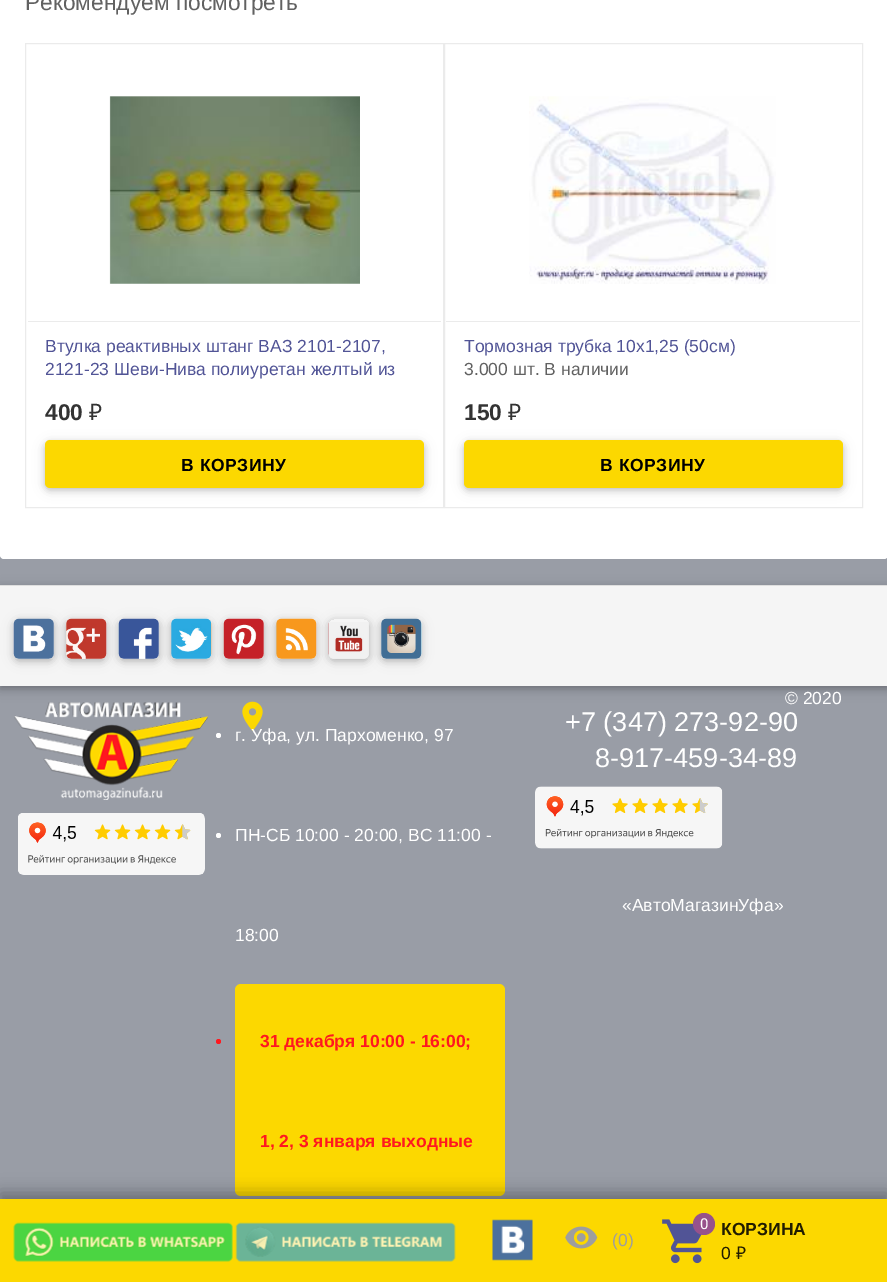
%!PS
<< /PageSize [887 1282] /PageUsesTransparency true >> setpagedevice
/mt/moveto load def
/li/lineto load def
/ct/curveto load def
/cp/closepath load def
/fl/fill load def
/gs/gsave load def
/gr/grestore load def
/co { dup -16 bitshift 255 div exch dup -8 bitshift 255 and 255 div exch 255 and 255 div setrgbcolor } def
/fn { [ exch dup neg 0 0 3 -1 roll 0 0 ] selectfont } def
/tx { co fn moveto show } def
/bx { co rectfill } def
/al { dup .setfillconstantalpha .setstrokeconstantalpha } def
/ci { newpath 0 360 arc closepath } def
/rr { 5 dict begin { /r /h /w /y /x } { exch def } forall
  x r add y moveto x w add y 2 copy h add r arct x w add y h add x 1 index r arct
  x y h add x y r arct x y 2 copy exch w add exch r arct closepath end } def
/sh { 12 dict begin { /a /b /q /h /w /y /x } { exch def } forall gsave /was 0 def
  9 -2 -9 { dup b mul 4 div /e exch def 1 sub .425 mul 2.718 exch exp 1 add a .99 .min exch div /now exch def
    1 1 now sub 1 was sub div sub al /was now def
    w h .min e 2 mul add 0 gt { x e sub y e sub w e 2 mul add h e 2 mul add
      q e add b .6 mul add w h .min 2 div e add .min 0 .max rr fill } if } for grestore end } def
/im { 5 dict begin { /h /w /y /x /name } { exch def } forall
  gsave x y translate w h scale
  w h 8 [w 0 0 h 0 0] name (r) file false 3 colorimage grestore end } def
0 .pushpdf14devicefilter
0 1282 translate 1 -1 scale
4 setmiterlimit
0 0 887 1282 16#999DA6 bx
16#FFFFFF co
0 -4 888 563 4 rr fl
16#EBEBEB co
25.5 43.5 418 464 rectstroke
(media/1.raw) 109 96 251 188 im
28 321 413 1 16#EBEBEB bx
16#000000 co
45 443 379 47 5 6 .12 sh
45 443 379 47 5 3 .16 sh
16#FCD800 co
45 440 379 48 5 rr fl
16#EBEBEB co
444.5 43.5 418 464 rectstroke
(media/2.raw) 529 96 247 188 im
446 321 414 1 16#EBEBEB bx
16#000000 co
464 443 379 47 5 6 .12 sh
464 443 379 47 5 3 .16 sh
16#FCD800 co
464 440 379 48 5 rr fl
(media/11.raw) 14 702 195 98 im
(media/13.raw) 242 701 21 30 im
16#000000 co
0 588 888 101 0 6 .12 sh
0 588 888 101 0 3 .16 sh
0 586 887 100 16#F5F5F5 bx
0 585 887 1 16#DEDEDE bx
16#000000 co
14 621 40 40 5 6 .12 sh
14 621 40 40 5 3 .16 sh
(media/3.raw) 13 618 41 41 im
66 621 40 40 5 6 .12 sh
66 621 40 40 5 3 .16 sh
(media/4.raw) 66 618 41 41 im
119 621 40 40 5 6 .12 sh
119 621 40 40 5 3 .16 sh
(media/5.raw) 118 618 41 41 im
171 621 40 40 5 6 .12 sh
171 621 40 40 5 3 .16 sh
(media/6.raw) 171 618 41 41 im
224 621 40 40 5 6 .12 sh
224 621 40 40 5 3 .16 sh
(media/7.raw) 223 618 41 41 im
276 621 40 40 5 6 .12 sh
276 621 40 40 5 3 .16 sh
(media/8.raw) 276 618 41 41 im
gs
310 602 mt 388 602 li 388 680 li 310 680 li cp 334 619 mt 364 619 li 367 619 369 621 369 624 ct 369 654 li 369 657 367 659 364 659 ct 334 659 li 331 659 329 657 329 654 ct 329 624 li 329 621 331 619 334 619 ct cp eoclip newpath
329 621 40 40 5 6 .12 sh
gr
gs
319 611 mt 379 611 li 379 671 li 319 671 li cp 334 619 mt 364 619 li 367 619 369 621 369 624 ct 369 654 li 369 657 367 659 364 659 ct 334 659 li 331 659 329 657 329 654 ct 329 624 li 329 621 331 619 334 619 ct cp eoclip newpath
329 621 40 40 5 3 .16 sh
gr
(media/9.raw) 328 622 41 37 im
381 621 40 40 5 6 .12 sh
381 621 40 40 5 3 .16 sh
(media/10.raw) 381 618 41 41 im
(media/12.raw) 18 813 187 62 im
16#FFFFFF co
218.5 735.5 2.5 ci fl
218.5 835.5 2.5 ci fl
16#FCD800 co
235 984 270 212 6 rr fl
16#FF181F co
218.5 1041.5 2.5 ci fl
(media/14.raw) 535 786 188 63 im
16#000000 co
0 1194 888 84 0 9.5 .15 sh
0 1193 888 83 0 7 .18 sh
0 1199 887 83 16#FCD800 bx
(media/15.raw) 13 1222 220 40 im
(media/16.raw) 235 1222 221 40 im
(media/17.raw) 492 1219 41 42 im
(media/18.raw) 565 1226 33 23 im
(media/19.raw) 662 1219 40 45 im
16#97528B co
704 1224 11 ci fl
(Рекомендуем посмотреть) 25 10 /LiberationSans-Regular 22.75 16#616161 tx
(Втулка реактивных штанг ВАЗ 2101-2107,) 45 352 /LiberationSans-Regular 17.5 16#515496 tx
(2121-23 Шеви-Нива полиуретан желтый из) 45 375 /LiberationSans-Regular 17.5 16#515496 tx
(400) 45 420 /LiberationSans-Bold 22.75 16#333333 tx
(₽) 89 420 /NotoSans-Regular 22.75 16#333333 tx
/LiberationSans-Bold 17.5 fn
16#000000 co
181 471 mt .6 0 (В КОРЗИНУ) ashow
(Тормозная трубка 10x1,25 \(50см\)) 464 352 /LiberationSans-Regular 17.5 16#515496 tx
(3.000 шт. В наличии) 464 375 /LiberationSans-Regular 17.5 16#616161 tx
(150) 464 420 /LiberationSans-Bold 22.75 16#333333 tx
(₽) 508 420 /NotoSans-Regular 22.75 16#333333 tx
/LiberationSans-Bold 17.5 fn
16#000000 co
600 471 mt .6 0 (В КОРЗИНУ) ashow
(© 2020) 785 704 /LiberationSans-Regular 17.5 16#FFFFFF tx
(«АвтоМагазинУфа») 622 911 /LiberationSans-Regular 17.5 16#FFFFFF tx
(г. Уфа, ул. Пархоменко, 97) 235 741 /LiberationSans-Regular 17.5 16#FFFFFF tx
(ПН-СБ 10:00 - 20:00, ВС 11:00 -) 235 841 /LiberationSans-Regular 17.5 16#FFFFFF tx
(18:00) 235 941 /LiberationSans-Regular 17.5 16#FFFFFF tx
(31 декабря 10:00 - 16:00;) 260 1047 /LiberationSans-Bold 17.5 16#FF181F tx
(1, 2, 3 января выходные) 260 1147 /LiberationSans-Bold 17.5 16#FF181F tx
(+7 \(347\) 273-92-90) 565 731 /LiberationSans-Regular 27.1 16#FFFFFF tx
(8-917-459-34-89) 595 767 /LiberationSans-Regular 27.1 16#FFFFFF tx
(\(0\)) 612 1246 /LiberationSans-Regular 17.5 16#9E9E9E tx
(0) 700 1229 /Roboto-Regular 15 16#FFFFFF tx
(КОРЗИНА) 721 1235 /LiberationSans-Bold 17.5 16#211C00 tx
(0) 721 1259 /LiberationSans-Regular 17.5 16#211C00 tx
(₽) 736 1259 /NotoSans-Regular 17.5 16#211C00 tx
.poppdf14devicefilter showpage
